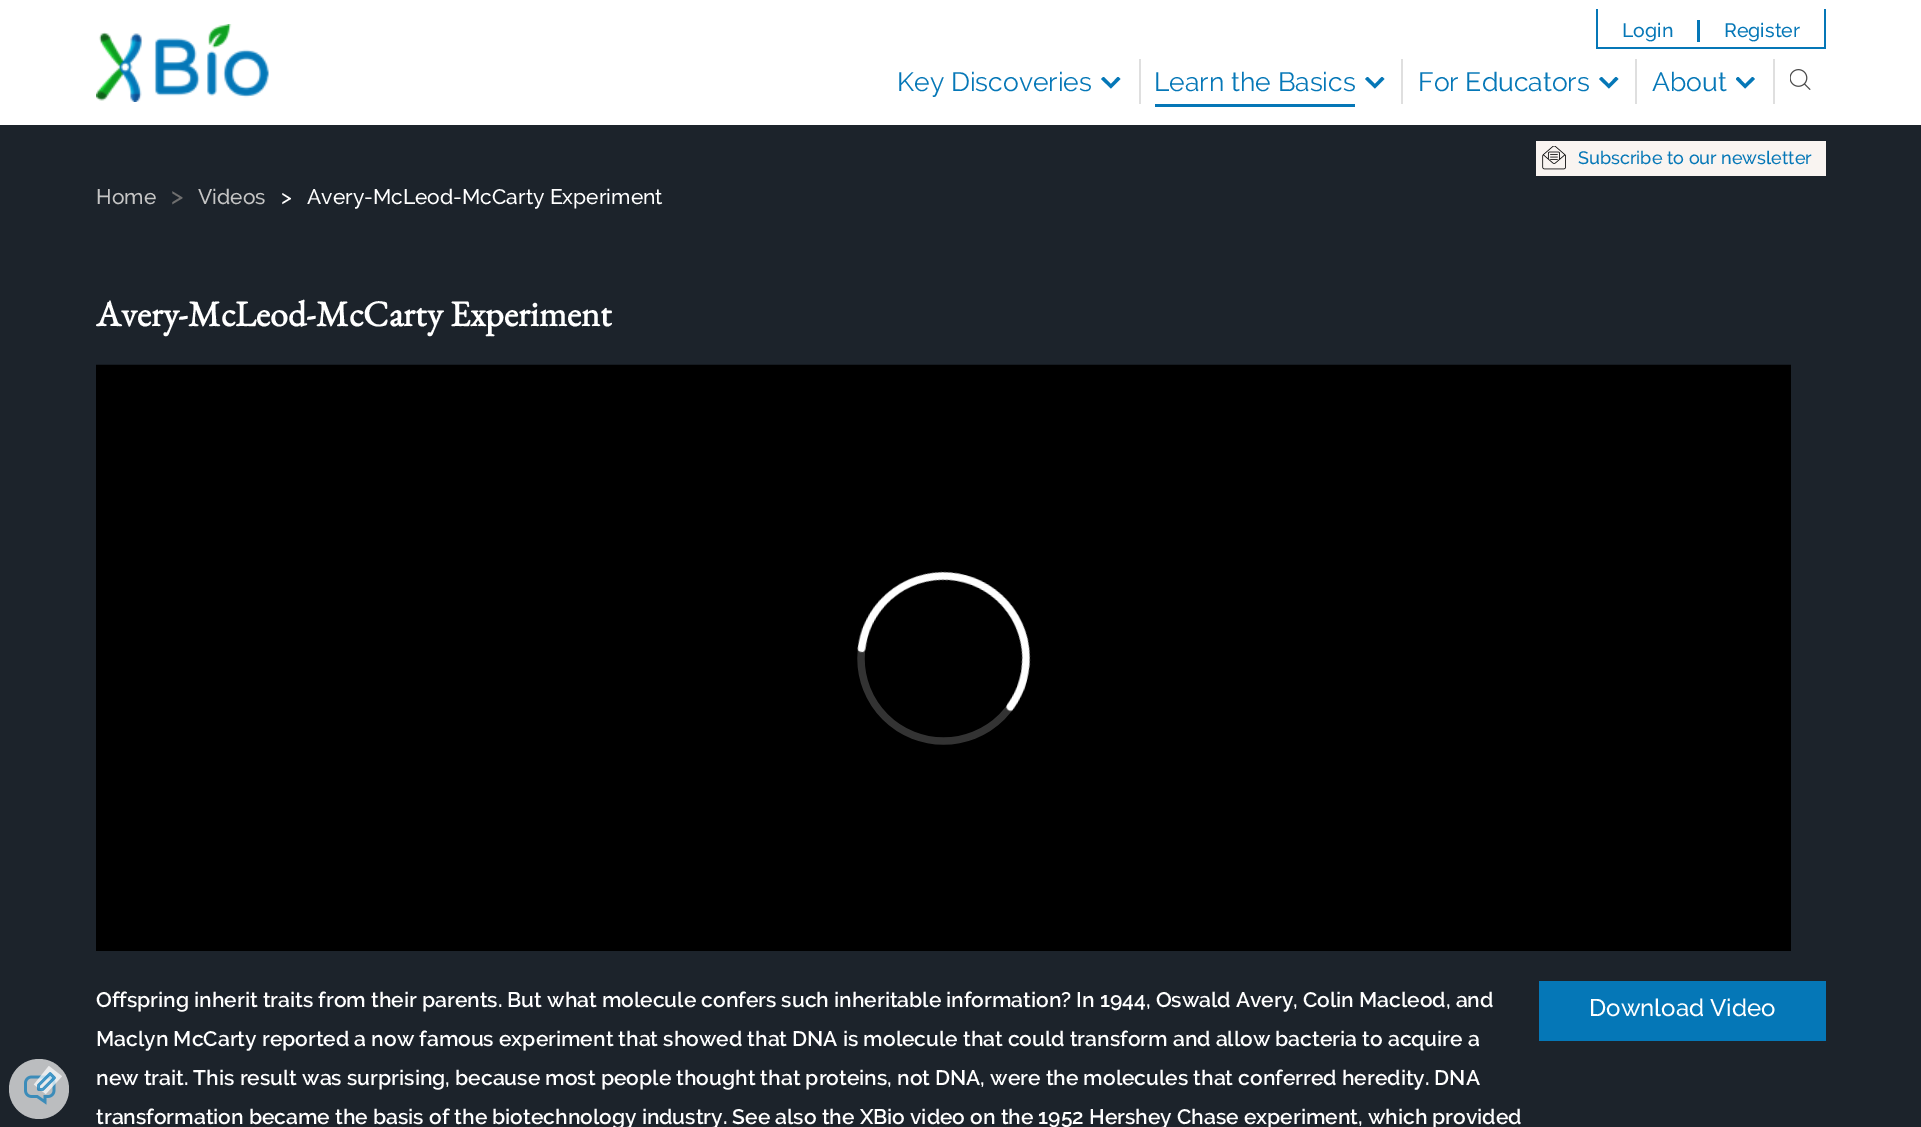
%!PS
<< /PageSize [1921 1127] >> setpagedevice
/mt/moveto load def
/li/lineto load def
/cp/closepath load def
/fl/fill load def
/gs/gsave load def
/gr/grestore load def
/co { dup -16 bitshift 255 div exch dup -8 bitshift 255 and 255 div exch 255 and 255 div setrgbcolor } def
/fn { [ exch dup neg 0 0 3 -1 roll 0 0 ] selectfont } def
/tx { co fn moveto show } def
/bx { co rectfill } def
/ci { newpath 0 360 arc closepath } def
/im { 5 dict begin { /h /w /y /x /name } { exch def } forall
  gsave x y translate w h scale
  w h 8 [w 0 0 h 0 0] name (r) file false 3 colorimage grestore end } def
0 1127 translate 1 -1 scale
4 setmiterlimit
0 0 1921 1127 16#FFFFFF bx
(media/1.raw) 96 24 173 78 im
1824 9 2 39 16#0577B7 bx
1596 47 230 2 16#0577B7 bx
1596 9 2 39 16#0577B7 bx
1697 20 3 22 16#0577B7 bx
gs
1101 77 20 12 rectclip
1120.5 79 mt 1118 76.5 li 1111 84 li 1103.5 76.5 li 1101 79 li 1111 88.5 li cp fl
gr
1139 59 2 45 16#DFDFDF bx
1155 104 200 3 16#0577B7 bx
gs
1365 77 20 12 rectclip
1384.5 79 mt 1382 76.5 li 1375 84 li 1367.5 76.5 li 1365 79 li 1375 88.5 li cp fl
gr
1401 59 2 45 16#DFDFDF bx
gs
1599 77 20 12 rectclip
16#0577B7 co
1618.5 79 mt 1616 76.5 li 1609 84 li 1601.5 76.5 li 1599 79 li 1609 88.5 li cp fl
gr
1635 59 2 45 16#DFDFDF bx
gs
1736 77 19 12 rectclip
16#0577B7 co
1755 79 mt 1752.5 76.5 li 1745 84 li 1738 76.5 li 1735.5 79 li 1745 88.5 li cp fl
gr
1773 59 2 45 16#DFDFDF bx
(media/2.raw) 1790 69 21 21 im
0 125 1921 1002 16#1C232B bx
1536 141 290 35 16#F9F4F1 bx
(media/3.raw) 1542 146 24 24 im
16#BBBDBF co
39 1089 30 ci fl
(media/4.raw) 24 1066 38 39 im
(media/5.raw) 96 364 1695 587 im
1539 981 287 60 16#0577B7 bx
(Login) 1622 37 /Raleway-Medium 19.5 16#0577B7 tx
(Register) 1724 37 /Raleway-Medium 19.5 16#0577B7 tx
(Key Discoveries) 897 91 /Raleway-Regular 26.5 16#0577B7 tx
(Learn the Basics) 1154 91 /Raleway-Regular 26.5 16#0577B7 tx
(For Educators) 1418 91 /Raleway-Regular 26.5 16#0577B7 tx
(About) 1652 91 /Raleway-Regular 26.5 16#0577B7 tx
(Subscribe to our newsletter) 1578 164 /Raleway-Medium 18 16#0577B7 tx
(Home) 96 204 /Raleway-Medium 21 16#C5C5C5 tx
(>) 171 204 /Raleway-Medium 24 16#6F6F6F tx
(Videos) 198 204 /Raleway-Medium 21 16#C5C5C5 tx
(>) 281 204 /Raleway-Medium 21 16#FFFFFF tx
(Avery-McLeod-McCarty Experiment) 307 204 /Raleway-Medium 21 16#FFFFFF tx
(Avery-McLeod-McCarty Experiment) 96 326 /EBGaramond-Bold 36 16#FFFFFF tx
(Offspring inherit traits from their parents. But what molecule confers such inheritable information? In 1944, Oswald Avery, Colin Macleod, and) 96 1007 /Raleway-SemiBold 21 16#FFFFFF tx
(Maclyn McCarty reported a now famous experiment that showed that DNA is molecule that could transform and allow bacteria to acquire a) 96 1046 /Raleway-SemiBold 21 16#FFFFFF tx
(new trait. This result was surprising, because most people thought that proteins, not DNA, were the molecules that conferred heredity. DNA) 96 1085 /Raleway-SemiBold 21 16#FFFFFF tx
(transformation became the basis of the biotechnology industry. See also the XBio video on the 1952 Hershey Chase experiment, which provided) 96 1124 /Raleway-SemiBold 21 16#FFFFFF tx
(Download Video) 1589 1016 /Raleway-Medium 24 16#FFFFFF tx
showpage
